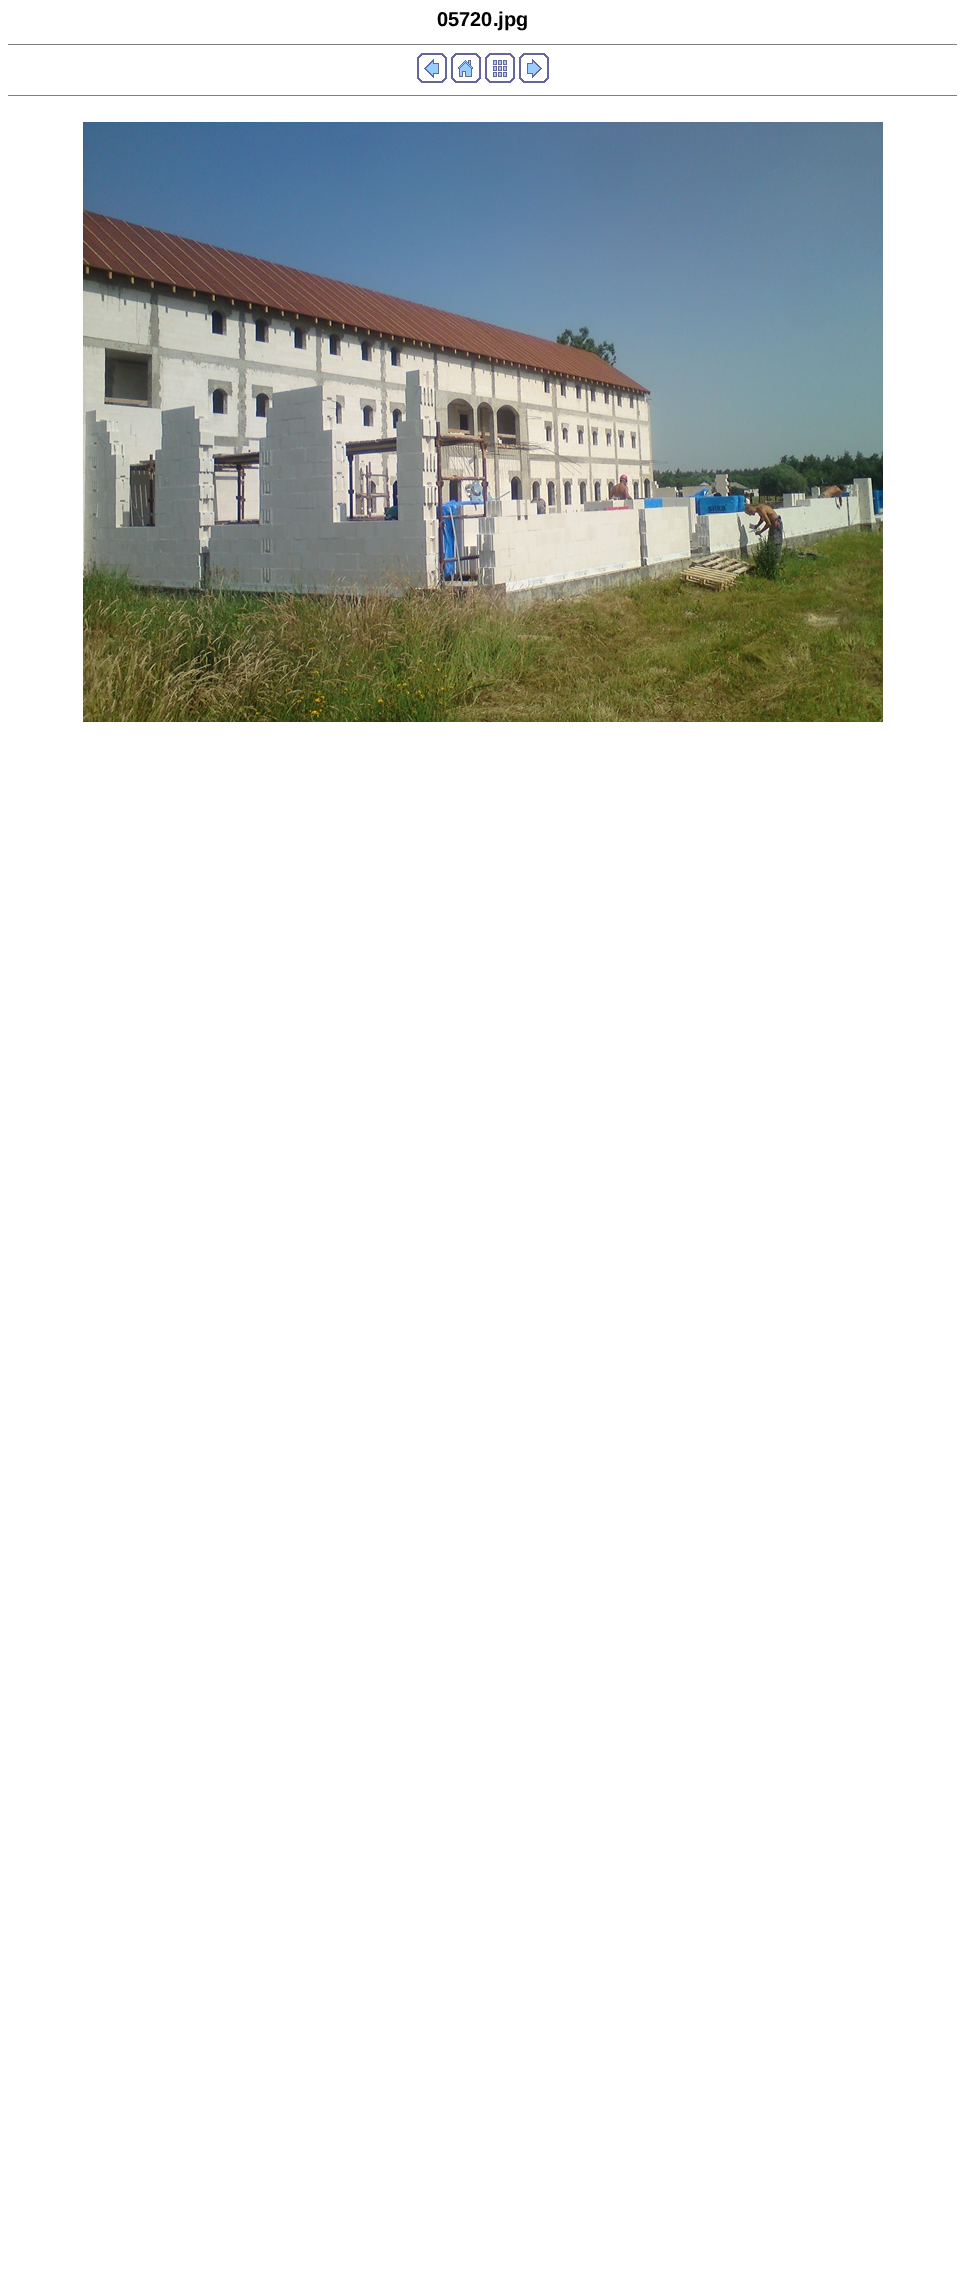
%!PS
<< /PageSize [965 2283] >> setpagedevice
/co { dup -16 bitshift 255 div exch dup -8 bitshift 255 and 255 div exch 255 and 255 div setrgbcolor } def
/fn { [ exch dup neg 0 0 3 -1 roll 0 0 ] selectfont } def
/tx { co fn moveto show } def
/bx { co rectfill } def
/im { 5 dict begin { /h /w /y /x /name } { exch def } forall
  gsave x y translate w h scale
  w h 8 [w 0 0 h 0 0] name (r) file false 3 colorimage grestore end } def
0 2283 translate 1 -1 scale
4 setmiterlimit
0 0 965 2283 16#FFFFFF bx
8 44 949 1 16#808080 bx
(media/1.raw) 417 53 30 30 im
(media/2.raw) 451 53 30 30 im
(media/3.raw) 485 53 30 30 im
(media/4.raw) 519 53 30 30 im
8 95 949 1 16#808080 bx
(media/5.raw) 83 122 800 600 im
(05720.jpg) 437 26 /LiberationSans-Bold 20 16#000000 tx
showpage
